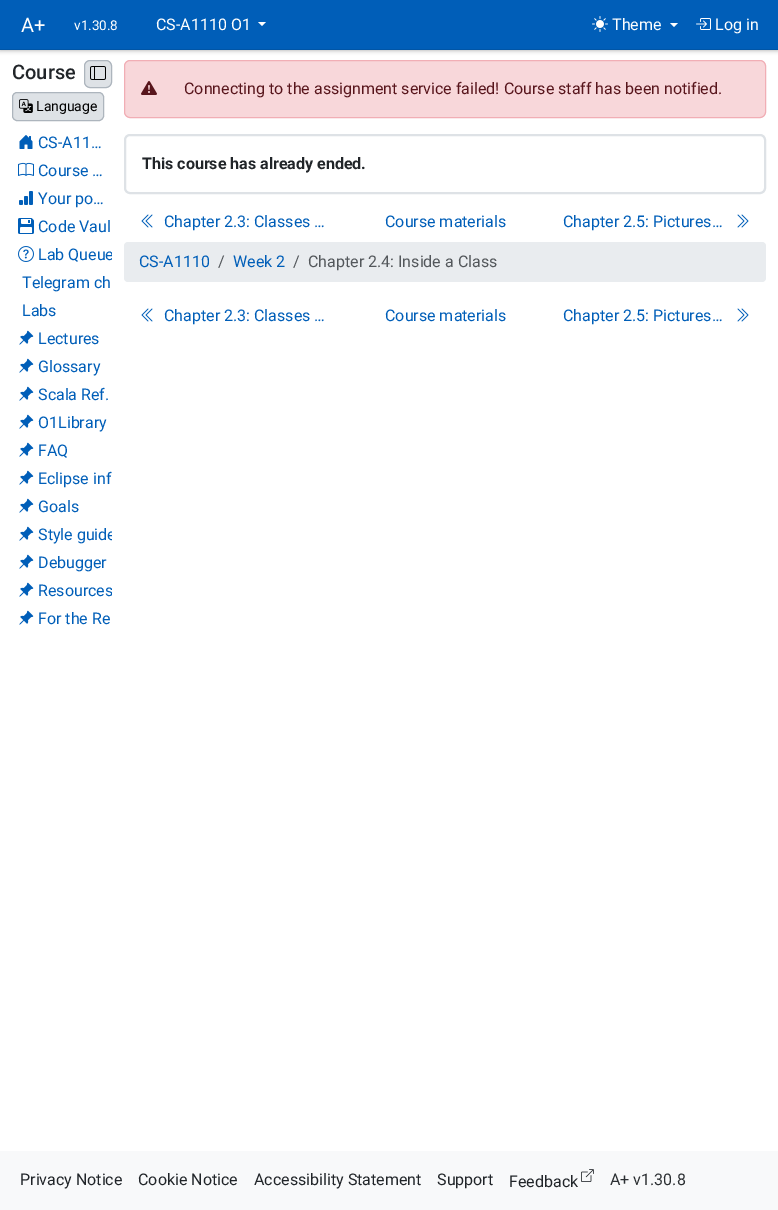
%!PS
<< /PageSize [778 1210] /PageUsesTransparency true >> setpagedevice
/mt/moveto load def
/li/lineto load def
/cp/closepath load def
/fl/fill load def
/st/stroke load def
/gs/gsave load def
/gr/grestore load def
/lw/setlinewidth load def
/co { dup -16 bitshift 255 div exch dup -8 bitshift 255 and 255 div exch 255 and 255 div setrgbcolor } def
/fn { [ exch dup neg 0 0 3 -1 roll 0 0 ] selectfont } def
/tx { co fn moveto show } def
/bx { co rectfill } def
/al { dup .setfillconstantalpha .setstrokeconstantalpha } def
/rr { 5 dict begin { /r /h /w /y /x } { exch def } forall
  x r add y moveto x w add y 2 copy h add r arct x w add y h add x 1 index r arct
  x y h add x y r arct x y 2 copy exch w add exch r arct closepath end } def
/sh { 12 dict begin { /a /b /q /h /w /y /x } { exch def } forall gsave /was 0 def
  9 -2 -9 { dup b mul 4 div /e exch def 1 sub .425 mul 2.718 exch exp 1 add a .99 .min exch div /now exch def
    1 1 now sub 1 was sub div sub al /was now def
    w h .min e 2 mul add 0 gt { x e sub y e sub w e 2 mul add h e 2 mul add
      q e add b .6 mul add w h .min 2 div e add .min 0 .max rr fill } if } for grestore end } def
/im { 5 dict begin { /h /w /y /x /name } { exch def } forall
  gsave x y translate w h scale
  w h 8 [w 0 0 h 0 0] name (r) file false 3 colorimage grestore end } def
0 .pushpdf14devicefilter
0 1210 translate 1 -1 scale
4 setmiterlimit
0 0 778 1210 16#FFFFFF bx
16#000000 co
0 1 778 50 0 2 .25 sh
0 0 778 49 16#005EB8 bx
0 49 778 1 16#0055A6 bx
16#FFFFFF co
258 22 mt 266 22 li 262 26 li cp fl
(media/1.raw) 592 16 16 16 im
670 23 mt 678 23 li 674 27 li cp fl
(media/2.raw) 696 18 15 12 im
16#DEE2E6 co
84.5 60.5 27 27 5.5 rr gs fl gr
16#ADB5BD co
st
(media/3.raw) 90 66 16 14 im
16#DEE2E6 co
12.5 92.5 91 28 4.5 rr gs fl gr
16#ADB5BD co
st
(media/4.raw) 19 99 14 14 im
(media/5.raw) 19 135 14 14 im
(media/6.raw) 18 162 16 14 im
(media/7.raw) 19 191 14 14 im
(media/8.raw) 18 218 16 16 im
(media/9.raw) 18 246 16 16 im
(media/10.raw) 19 330 15 15 im
(media/10.raw) 19 358 15 15 im
(media/10.raw) 19 386 15 15 im
(media/10.raw) 19 414 15 15 im
(media/10.raw) 19 442 15 15 im
(media/10.raw) 19 470 15 15 im
(media/10.raw) 19 498 15 15 im
(media/10.raw) 19 526 15 15 im
(media/10.raw) 19 554 15 15 im
(media/10.raw) 19 582 15 15 im
(media/10.raw) 19 610 15 15 im
16#DEE2E6 co
2 lw
125 135 640 58 5 rr st
(media/11.raw) 141 214 12 14 im
(media/12.raw) 737 214 12 14 im
16#E9ECEF co
124 242 642 40 4 rr fl
(media/11.raw) 141 308 12 14 im
(media/12.raw) 737 308 12 14 im
16#F8D7DA co
124.5 60.5 641 57 5.5 rr gs fl gr
16#F1AEB5 co
1 lw
st
(media/13.raw) 141 81 16 14 im
0 1151 778 59 16#F8F9FA bx
(media/14.raw) 581 1169 13 13 im
(A+) 21 32 /Roboto-Regular 20 16#FFFFFF tx
(v1.30.8) 74 30 /Roboto-Regular 13.5 16#FFFFFF tx
(CS-A1110 O1) 156 30 /Roboto-Regular 16 16#FFFFFF tx
(Theme) 612 30 /Roboto-Regular 16 16#FFFFFF tx
(Log in) 715 30 /Roboto-Regular 16 16#FFFFFF tx
(Course) 12 79 /Roboto-Medium 20 16#212529 tx
(Language) 36 111 /Roboto-Regular 14 16#000000 tx
(CS-A11…) 38 148 /Roboto-Regular 16 16#005EB8 tx
(Course …) 38 176 /Roboto-Regular 16 16#005EB8 tx
(Your po…) 38 204 /Roboto-Regular 16 16#005EB8 tx
(Code Vaul) 38 232 /Roboto-Regular 16 16#005EB8 tx
gs
12 241 100 28 6 rr clip newpath
(Lab Queue) 38 260 /Roboto-Regular 16 16#005EB8 tx
gr
(Telegram ch) 22 288 /Roboto-Regular 16 16#005EB8 tx
(Labs) 22 316 /Roboto-Regular 16 16#005EB8 tx
(Lectures) 38 344 /Roboto-Regular 16 16#005EB8 tx
(Glossary) 38 372 /Roboto-Regular 16 16#005EB8 tx
(Scala Ref.) 38 400 /Roboto-Regular 16 16#005EB8 tx
(O1Library) 38 428 /Roboto-Regular 16 16#005EB8 tx
(FAQ) 38 456 /Roboto-Regular 16 16#005EB8 tx
(Eclipse inf) 38 484 /Roboto-Regular 16 16#005EB8 tx
(Goals) 38 512 /Roboto-Regular 16 16#005EB8 tx
gs
12 521 100 28 6 rr clip newpath
(Style guide) 38 540 /Roboto-Regular 16 16#005EB8 tx
gr
(Debugger) 38 568 /Roboto-Regular 16 16#005EB8 tx
gs
12 577 100 28 6 rr clip newpath
(Resources) 38 596 /Roboto-Regular 16 16#005EB8 tx
gr
(For the Re) 38 624 /Roboto-Regular 16 16#005EB8 tx
(This course has already ended.) 142 169 /Roboto-Bold 16 16#212529 tx
(Chapter 2.3: Classes …) 164 227 /Roboto-Regular 16 16#005EB8 tx
(Course materials) 385 227 /Roboto-Regular 16 16#005EB8 tx
(Chapter 2.5: Pictures…) 563 227 /Roboto-Regular 16 16#005EB8 tx
(CS-A1110) 139 267 /Roboto-Regular 16 16#005EB8 tx
(/) 218 267 /Roboto-Regular 16 16#53575B tx
(Week 2) 233 267 /Roboto-Regular 16 16#005EB8 tx
(/) 293 267 /Roboto-Regular 16 16#53575B tx
(Chapter 2.4: Inside a Class) 308 267 /Roboto-Regular 16 16#53575B tx
(Chapter 2.3: Classes …) 164 321 /Roboto-Regular 16 16#005EB8 tx
(Course materials) 385 321 /Roboto-Regular 16 16#005EB8 tx
(Chapter 2.5: Pictures…) 563 321 /Roboto-Regular 16 16#005EB8 tx
(Connecting to the assignment service failed! Course staff has been notified.) 184 94 /Roboto-Regular 16 16#58151C tx
(Privacy Notice) 20 1185 /Roboto-Regular 16 16#212529 tx
(Cookie Notice) 138 1185 /Roboto-Regular 16 16#212529 tx
(Accessibility Statement) 254 1185 /Roboto-Regular 16 16#212529 tx
(Support) 437 1185 /Roboto-Regular 16 16#212529 tx
(Feedback) 509 1187 /Roboto-Regular 16 16#212529 tx
(A+ v1.30.8) 610 1185 /Roboto-Regular 16 16#2B2F32 tx
.poppdf14devicefilter showpage
